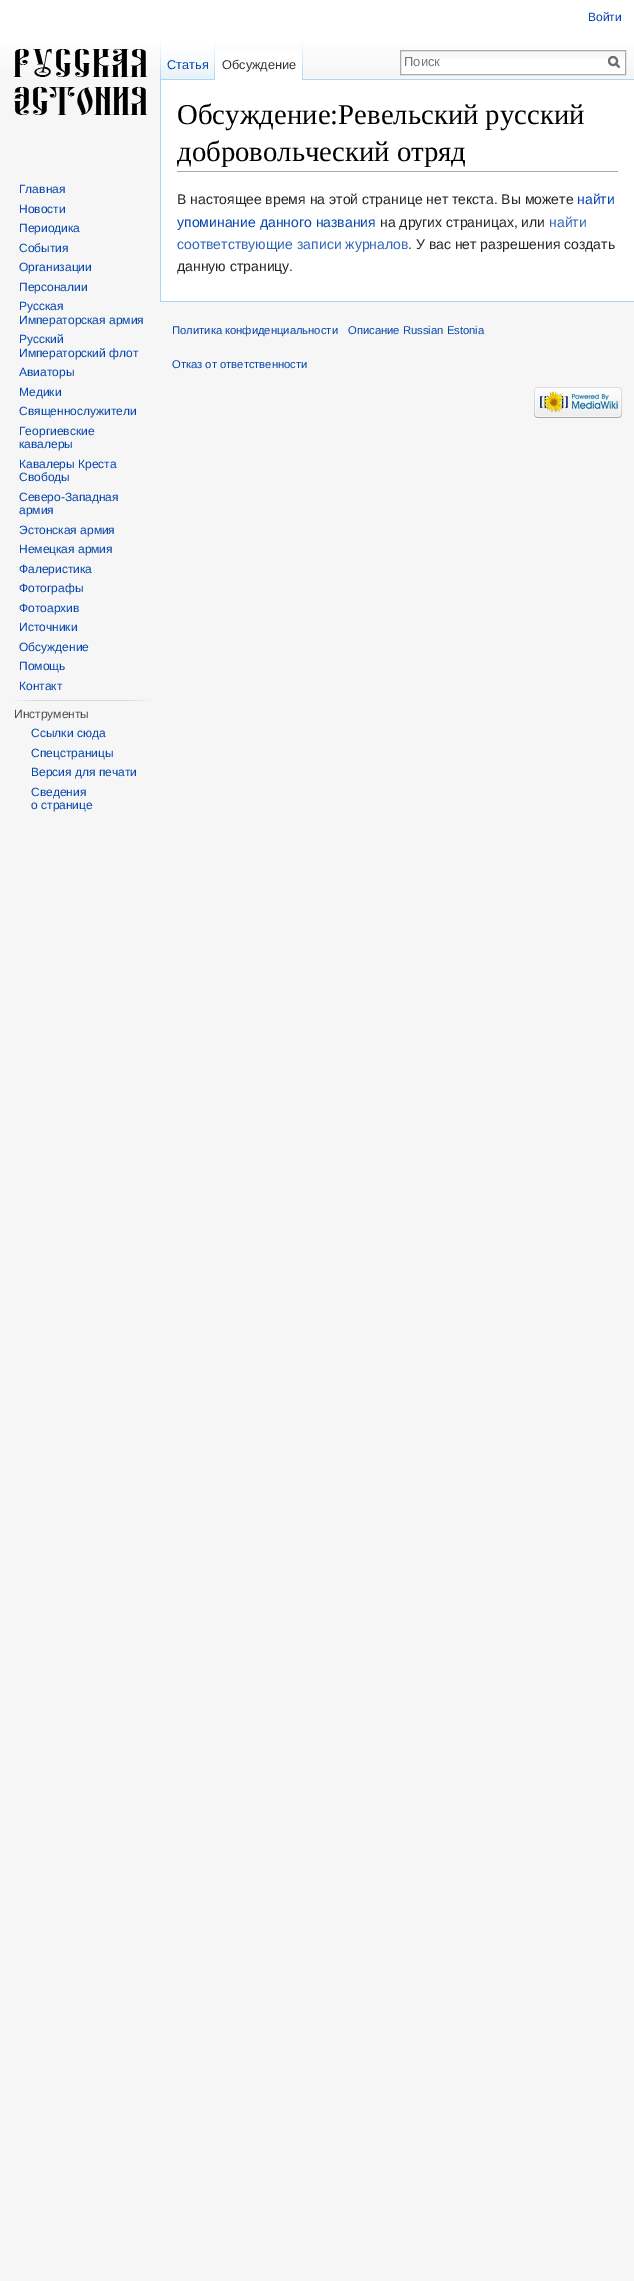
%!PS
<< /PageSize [634 2281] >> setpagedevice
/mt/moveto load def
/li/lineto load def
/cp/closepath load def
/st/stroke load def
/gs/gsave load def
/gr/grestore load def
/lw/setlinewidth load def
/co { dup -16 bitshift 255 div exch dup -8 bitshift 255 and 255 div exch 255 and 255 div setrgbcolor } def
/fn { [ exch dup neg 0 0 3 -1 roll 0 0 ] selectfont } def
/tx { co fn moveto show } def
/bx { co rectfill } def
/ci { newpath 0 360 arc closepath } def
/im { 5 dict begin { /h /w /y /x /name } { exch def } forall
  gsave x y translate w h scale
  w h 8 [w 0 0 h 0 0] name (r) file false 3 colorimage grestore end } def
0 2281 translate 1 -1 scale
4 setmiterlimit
0 0 634 2281 16#F6F6F6 bx
gs 0 0 mt 634 0 li 634 69 li 0 69 li cp clip newpath
<< /ShadingType 2 /ColorSpace /DeviceRGB /Coords [317 0 317 80] /Extend [true true] /Function << /FunctionType 3 /Domain [0 1] /Functions [<< /FunctionType 2 /Domain [0 1] /C0 [1 1 1] /C1 [1 1 1] /N 1 >> << /FunctionType 2 /Domain [0 1] /C0 [1 1 1] /C1 [.965 .965 .965] /N 1 >>] /Bounds [.5] /Encode [0 1 0 1] >> >> shfill gr
(media/1.raw) 160 40 1 39 im
(media/2.raw) 161 40 54 40 im
(media/3.raw) 214 40 1 39 im
215 51 87 29 16#FFFFFF bx
(media/4.raw) 302 40 1 40 im
401 59 224 15 16#FFFFFF bx
(media/5.raw) 401 51 224 8 im
16#AAAAAA co
400.5 50.5 225 24 rectstroke
16#6C6C6C co
2 lw
619.5 67.5 mt 615.5 63.5 li st
613 61 4 ci st
(media/6.raw) 13 49 135 66 im
(media/7.raw) 14 700 135 1 im
161 80 473 221 16#FFFFFF bx
303 79 331 1 16#A7D7F9 bx
160 301 474 1 16#A7D7F9 bx
160 79 1 223 16#A7D7F9 bx
177 171 441 1 16#AAAAAA bx
(media/8.raw) 534 387 88 31 im
(Войти) 588 21 /LiberationSans-Regular 12 16#0645AD tx
(Статья) 167 69 /LiberationSans-Regular 12.75 16#0645AD tx
(Обсуждение) 222 69 /LiberationSans-Regular 12.75 16#333333 tx
(Поиск) 404 66 /LiberationSans-Regular 13 16#757575 tx
(Главная) 19 193 /LiberationSans-Regular 12 16#0645AD tx
(Новости) 19 213 /LiberationSans-Regular 12 16#0645AD tx
(Периодика) 19 232 /LiberationSans-Regular 12 16#0645AD tx
(События) 19 252 /LiberationSans-Regular 12 16#0645AD tx
(Организации) 19 271 /LiberationSans-Regular 12 16#0645AD tx
(Персоналии) 19 291 /LiberationSans-Regular 12 16#0645AD tx
(Русская) 19 310 /LiberationSans-Regular 12 16#0645AD tx
(Императорская армия) 19 324 /LiberationSans-Regular 12 16#0645AD tx
(Русский) 19 343 /LiberationSans-Regular 12 16#0645AD tx
(Императорский флот) 19 357 /LiberationSans-Regular 12 16#0645AD tx
(Авиаторы) 19 376 /LiberationSans-Regular 12 16#0645AD tx
(Медики) 19 396 /LiberationSans-Regular 12 16#0645AD tx
(Священнослужители) 19 415 /LiberationSans-Regular 12 16#0645AD tx
(Георгиевские) 19 435 /LiberationSans-Regular 12 16#0645AD tx
(кавалеры) 19 448 /LiberationSans-Regular 12 16#0645AD tx
(Кавалеры Креста) 19 468 /LiberationSans-Regular 12 16#0645AD tx
(Свободы) 19 481 /LiberationSans-Regular 12 16#0645AD tx
(Северо-Западная) 19 501 /LiberationSans-Regular 12 16#0645AD tx
(армия) 19 514 /LiberationSans-Regular 12 16#0645AD tx
(Эстонская армия) 19 534 /LiberationSans-Regular 12 16#0645AD tx
(Немецкая армия) 19 553 /LiberationSans-Regular 12 16#0645AD tx
(Фалеристика) 19 573 /LiberationSans-Regular 12 16#0645AD tx
(Фотографы) 19 592 /LiberationSans-Regular 12 16#0645AD tx
(Фотоархив) 19 612 /LiberationSans-Regular 12 16#0645AD tx
(Источники) 19 631 /LiberationSans-Regular 12 16#0645AD tx
(Обсуждение) 19 651 /LiberationSans-Regular 12 16#0645AD tx
(Помощь) 19 670 /LiberationSans-Regular 12 16#0645AD tx
(Контакт) 19 690 /LiberationSans-Regular 12 16#0645AD tx
(Инструменты) 14 718 /LiberationSans-Regular 12 16#4D4D4D tx
(Ссылки сюда) 31 737 /LiberationSans-Regular 12 16#0645AD tx
(Спецстраницы) 31 757 /LiberationSans-Regular 12 16#0645AD tx
(Версия для печати) 31 776 /LiberationSans-Regular 12 16#0645AD tx
(Сведения) 31 796 /LiberationSans-Regular 12 16#0645AD tx
(о странице) 31 809 /LiberationSans-Regular 12 16#0645AD tx
(Обсуждение:Ревельский русский) 177 124 /LiberationSerif-Regular 28.75 16#000000 tx
(добровольческий отряд) 177 161 /LiberationSerif-Regular 28.75 16#000000 tx
(В настоящее время на этой странице нет текста. Вы можете) 177 204 /LiberationSans-Regular 14 16#252525 tx
(найти) 577 204 /LiberationSans-Regular 14 16#0645AD tx
(упоминание данного названия) 177 227 /LiberationSans-Regular 14 16#0645AD tx
(на других страницах, или) 380 227 /LiberationSans-Regular 14 16#252525 tx
(найти) 549 227 /LiberationSans-Regular 14 16#3366BB tx
(соответствующие записи журналов) 177 249 /LiberationSans-Regular 14 16#3366BB tx
(. У вас нет разрешения создать) 408 249 /LiberationSans-Regular 14 16#252525 tx
(данную страницу.) 177 271 /LiberationSans-Regular 14 16#252525 tx
(Политика конфиденциальности) 172 334 /LiberationSans-Regular 11.25 16#0645AD tx
(Описание Russian Estonia) 348 334 /LiberationSans-Regular 11.25 16#0645AD tx
(Отказ от ответственности) 172 368 /LiberationSans-Regular 11.25 16#0645AD tx
showpage
